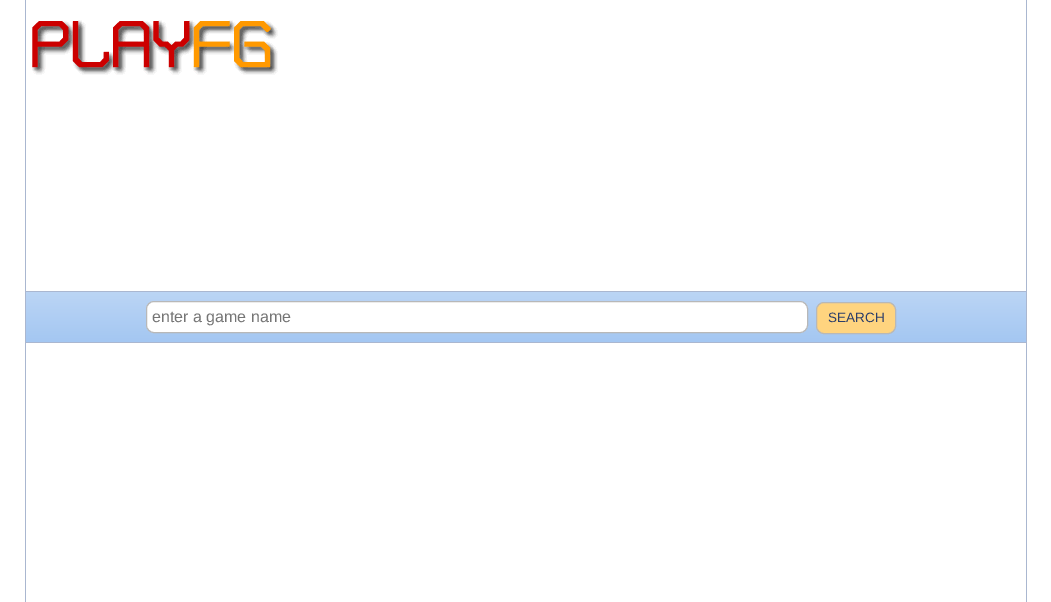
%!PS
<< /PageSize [1051 602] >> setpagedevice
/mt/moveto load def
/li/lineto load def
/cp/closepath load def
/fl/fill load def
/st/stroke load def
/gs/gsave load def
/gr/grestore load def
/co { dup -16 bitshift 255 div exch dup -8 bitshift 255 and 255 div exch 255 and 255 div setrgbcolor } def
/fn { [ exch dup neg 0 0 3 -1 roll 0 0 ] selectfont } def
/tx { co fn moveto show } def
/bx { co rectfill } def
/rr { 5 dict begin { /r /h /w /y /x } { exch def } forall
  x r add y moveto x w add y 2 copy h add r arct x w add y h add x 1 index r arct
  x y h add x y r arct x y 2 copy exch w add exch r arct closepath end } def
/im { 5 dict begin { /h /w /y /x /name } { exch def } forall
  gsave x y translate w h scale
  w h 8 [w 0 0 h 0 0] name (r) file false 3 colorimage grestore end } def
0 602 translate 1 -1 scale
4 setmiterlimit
0 0 1051 602 16#FFFFFF bx
1026 0 1 602 16#AAB7D0 bx
25 0 1 602 16#AAB7D0 bx
(media/1.raw) 32 20 246 55 im
gs 26 292 mt 1026 292 li 1026 342 li 26 342 li cp clip newpath
<< /ShadingType 2 /ColorSpace /DeviceRGB /Coords [526 292 526 342] /Extend [true true] /Function << /FunctionType 2 /Domain [0 1] /C0 [.733 .835 .961] /C1 [.643 .78 .949] /N 1 >> >> shfill gr
26 291 1000 1 16#AAB7D0 bx
26 342 1000 1 16#AAB7D0 bx
16#FFFFFF co
146.5 301.5 661 31 7.5 rr gs fl gr
16#B8B8B8 co
st
16#FFD47F co
816.5 302.5 79 31 7.5 rr gs fl gr
16#B8B8B8 co
st
(enter a game name) 152 322 /LiberationSans-Regular 16 16#757575 tx
(SEARCH) 828 322 /LiberationSans-Regular 13.5 16#2C3E6A tx
showpage
